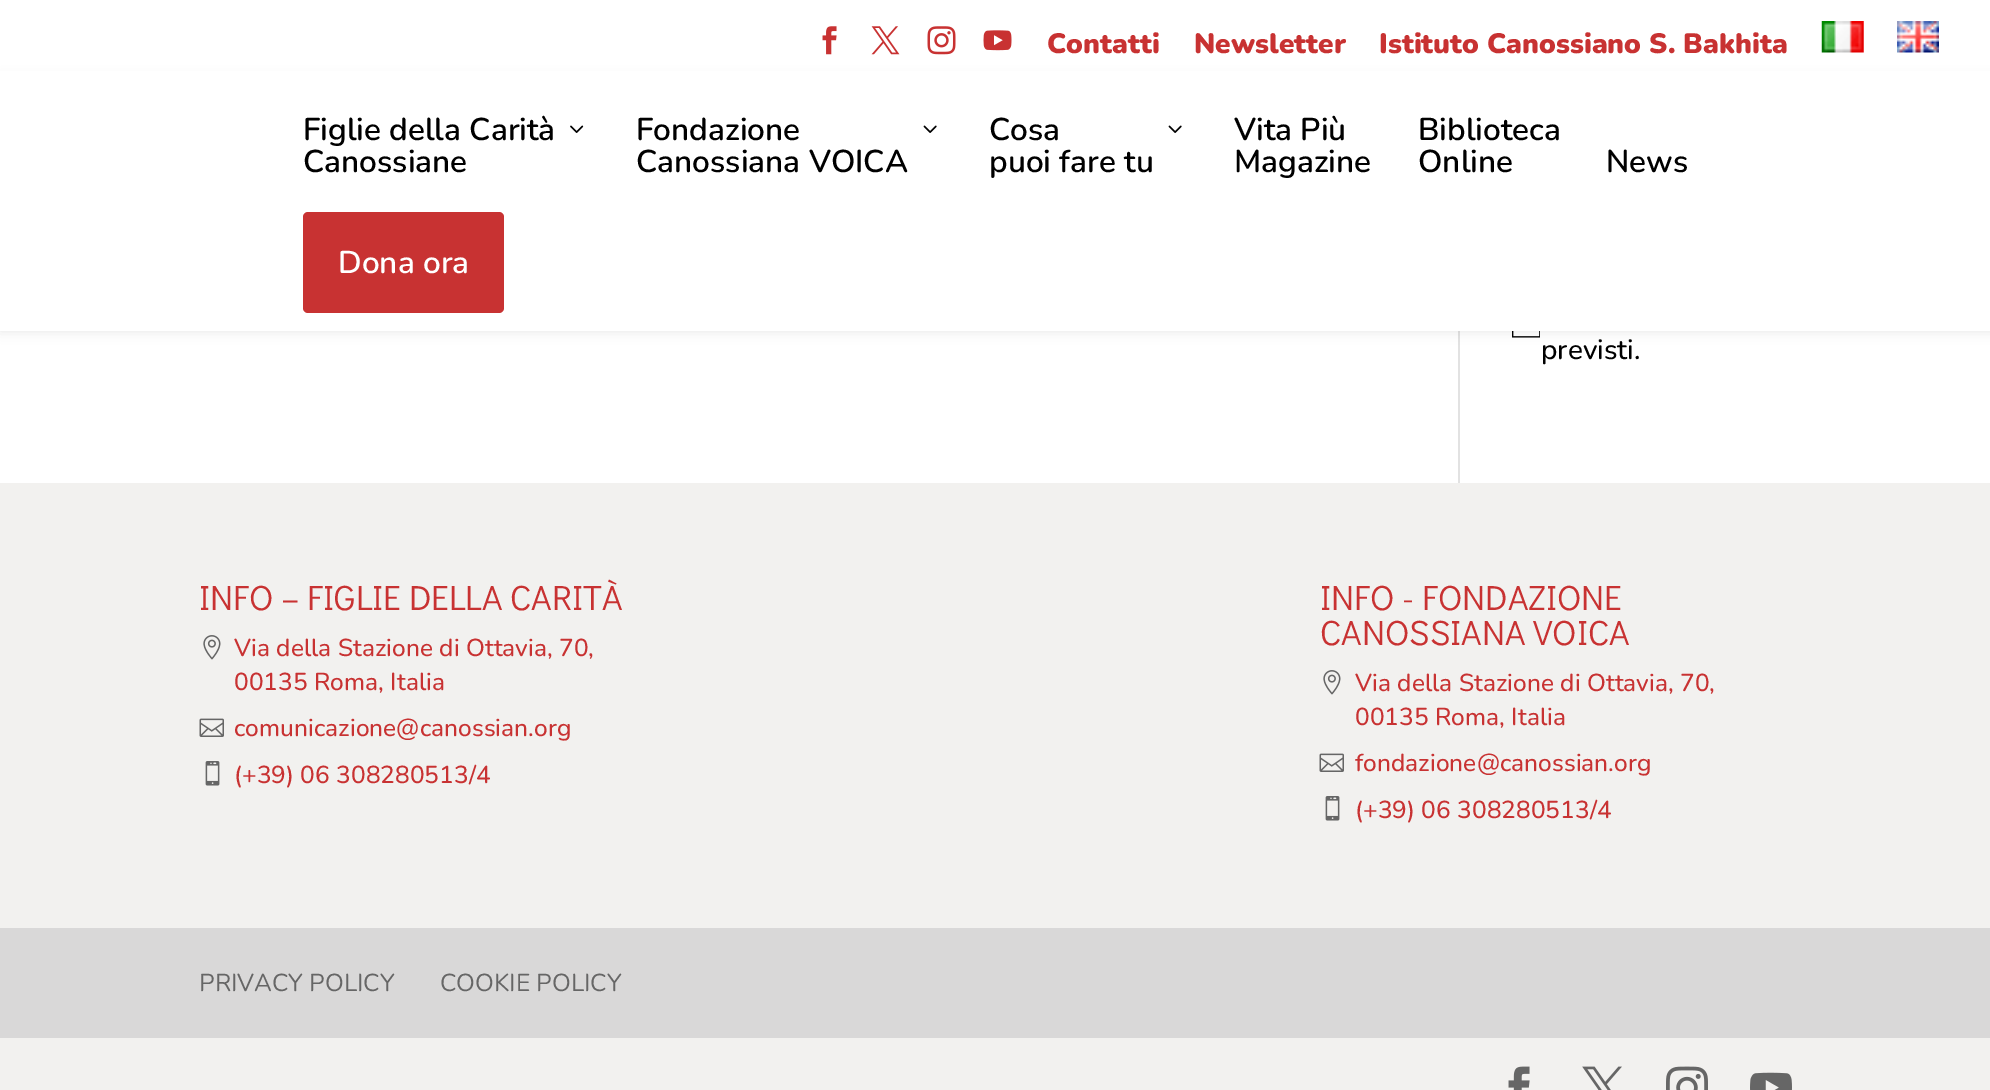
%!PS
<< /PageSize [1990 1090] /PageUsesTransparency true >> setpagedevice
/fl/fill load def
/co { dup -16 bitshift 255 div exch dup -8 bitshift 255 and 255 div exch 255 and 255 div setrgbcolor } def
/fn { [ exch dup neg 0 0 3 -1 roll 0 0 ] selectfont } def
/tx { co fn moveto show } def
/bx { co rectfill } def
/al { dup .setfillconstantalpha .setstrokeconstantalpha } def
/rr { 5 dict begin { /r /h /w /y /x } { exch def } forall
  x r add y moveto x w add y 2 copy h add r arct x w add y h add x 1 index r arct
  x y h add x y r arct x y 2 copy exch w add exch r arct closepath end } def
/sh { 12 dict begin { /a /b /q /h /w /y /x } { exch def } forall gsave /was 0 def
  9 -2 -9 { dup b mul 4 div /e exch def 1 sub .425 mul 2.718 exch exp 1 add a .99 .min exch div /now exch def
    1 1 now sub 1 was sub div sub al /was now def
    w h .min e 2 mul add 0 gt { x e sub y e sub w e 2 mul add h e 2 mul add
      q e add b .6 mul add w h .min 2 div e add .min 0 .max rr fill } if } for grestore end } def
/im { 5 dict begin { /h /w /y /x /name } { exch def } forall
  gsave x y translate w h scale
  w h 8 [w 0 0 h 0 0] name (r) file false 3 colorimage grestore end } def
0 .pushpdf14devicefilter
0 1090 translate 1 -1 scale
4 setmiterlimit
0 0 1990 1090 16#FFFFFF bx
(media/1.raw) 822 26 15 29 im
(media/2.raw) 871 26 29 29 im
(media/3.raw) 927 26 29 29 im
(media/4.raw) 983 30 29 21 im
(media/5.raw) 1821 21 43 32 im
(media/6.raw) 1897 21 42 32 im
1458 331 2 152 16#E2E2E2 bx
(media/9.raw) 1512 331 28 7 im
16#000000 co
0 79 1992 252 0 6 .1 sh
0 71 1990 260 16#FFFFFF bx
(media/7.raw) 570 125 14 8 im
(media/8.raw) 923 125 14 8 im
(media/8.raw) 1168 125 14 8 im
16#C83232 co
303 212 201 101 5 rr fl
0 483 1990 607 16#F2F1EF bx
(media/10.raw) 203 635 18 25 im
(media/11.raw) 199 718 25 19 im
(media/12.raw) 205 761 15 25 im
(media/10.raw) 1323 670 18 25 im
(media/11.raw) 1319 753 25 19 im
(media/12.raw) 1325 796 15 25 im
0 928 1990 110 16#D9D8D8 bx
(media/13.raw) 1508 1066 22 24 im
(media/14.raw) 1582 1066 40 24 im
(media/15.raw) 1666 1066 42 24 im
(media/16.raw) 1750 1072 42 18 im
(Contatti) 1047 53 /Nunito-Black 28 16#C83232 tx
(Newsletter) 1194 53 /Nunito-Black 28 16#C83232 tx
(Istituto Canossiano S. Bakhita) 1379 53 /Nunito-Black 28 16#C83232 tx
(Figlie della Carità) 303 140 /Nunito-SemiBold 31.5 16#000000 tx
(Canossiane) 303 172 /Nunito-SemiBold 31.5 16#000000 tx
(Fondazione) 636 140 /Nunito-SemiBold 31.5 16#000000 tx
(Canossiana VOICA) 636 172 /Nunito-SemiBold 31.5 16#000000 tx
(Cosa) 989 140 /Nunito-SemiBold 31.5 16#000000 tx
(puoi fare tu) 989 172 /Nunito-SemiBold 31.5 16#000000 tx
(Vita Più) 1234 140 /Nunito-SemiBold 31.5 16#000000 tx
(Magazine) 1234 172 /Nunito-SemiBold 31.5 16#000000 tx
(Biblioteca) 1418 140 /Nunito-SemiBold 31.5 16#000000 tx
(Online) 1418 172 /Nunito-SemiBold 31.5 16#000000 tx
(News) 1606 172 /Nunito-SemiBold 31.5 16#000000 tx
(Dona ora) 338 273 /Nunito-SemiBold 31.5 16#FFFFFF tx
(previsti.) 1541 359 /Nunito-Medium 28 16#000000 tx
(INFO – FIGLIE DELLA CARITÀ) 199 610 /DidactGothic-Regular 35 16#C83232 tx
(Via della Stazione di Ottavia, 70,) 234 656 /Nunito-Medium 24.5 16#C83232 tx
(00135 Roma, Italia) 234 690 /Nunito-Medium 24.5 16#C83232 tx
(comunicazione@canossian.org) 234 736 /Nunito-Medium 24.5 16#C83232 tx
(\(+39\) 06 308280513/4) 234 783 /Nunito-Medium 24.5 16#C83232 tx
(INFO - FONDAZIONE) 1320 610 /DidactGothic-Regular 35 16#C83232 tx
(CANOSSIANA VOICA) 1320 645 /DidactGothic-Regular 35 16#C83232 tx
(Via della Stazione di Ottavia, 70,) 1355 691 /Nunito-Medium 24.5 16#C83232 tx
(00135 Roma, Italia) 1355 725 /Nunito-Medium 24.5 16#C83232 tx
(fondazione@canossian.org) 1355 771 /Nunito-Medium 24.5 16#C83232 tx
(\(+39\) 06 308280513/4) 1355 818 /Nunito-Medium 24.5 16#C83232 tx
(PRIVACY POLICY) 199 991 /Nunito-Regular 24.5 16#666666 tx
(COOKIE POLICY) 440 991 /Nunito-Regular 24.5 16#666666 tx
.poppdf14devicefilter showpage
